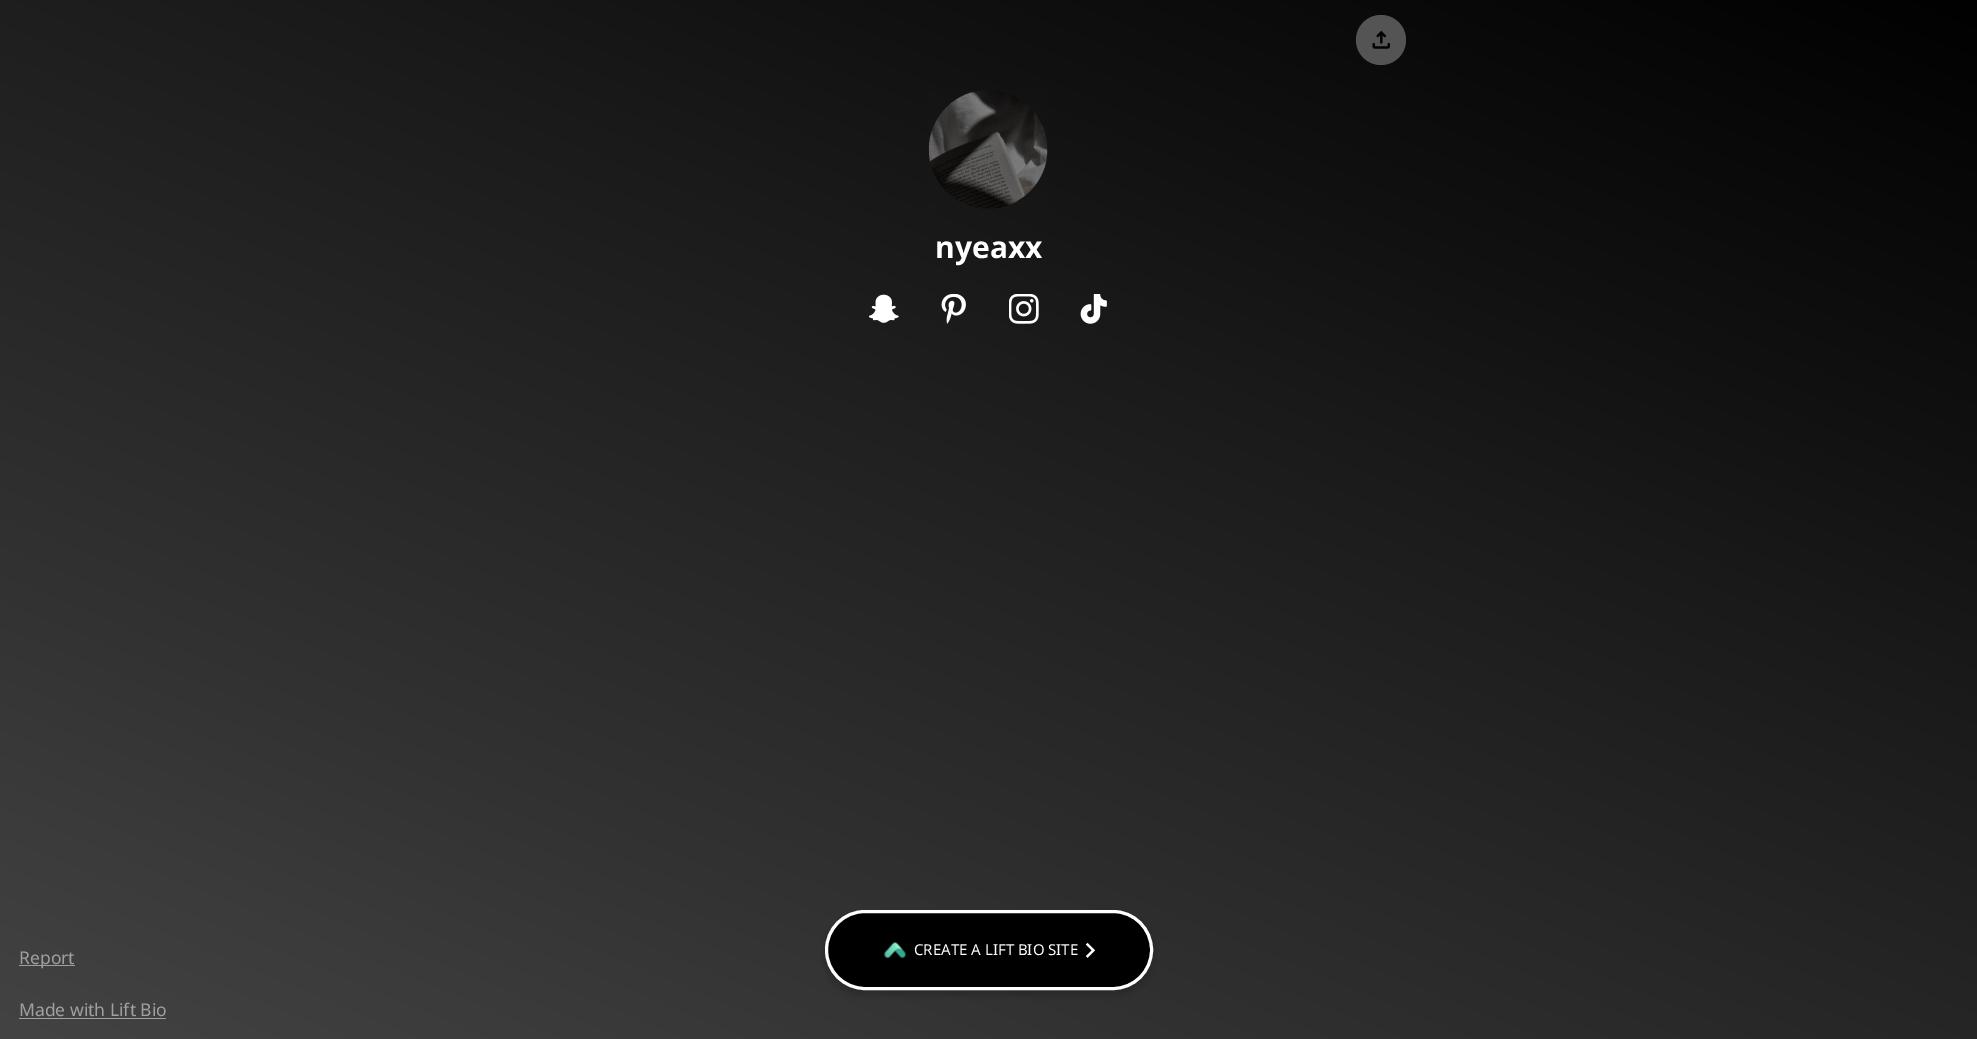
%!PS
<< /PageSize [1977 1039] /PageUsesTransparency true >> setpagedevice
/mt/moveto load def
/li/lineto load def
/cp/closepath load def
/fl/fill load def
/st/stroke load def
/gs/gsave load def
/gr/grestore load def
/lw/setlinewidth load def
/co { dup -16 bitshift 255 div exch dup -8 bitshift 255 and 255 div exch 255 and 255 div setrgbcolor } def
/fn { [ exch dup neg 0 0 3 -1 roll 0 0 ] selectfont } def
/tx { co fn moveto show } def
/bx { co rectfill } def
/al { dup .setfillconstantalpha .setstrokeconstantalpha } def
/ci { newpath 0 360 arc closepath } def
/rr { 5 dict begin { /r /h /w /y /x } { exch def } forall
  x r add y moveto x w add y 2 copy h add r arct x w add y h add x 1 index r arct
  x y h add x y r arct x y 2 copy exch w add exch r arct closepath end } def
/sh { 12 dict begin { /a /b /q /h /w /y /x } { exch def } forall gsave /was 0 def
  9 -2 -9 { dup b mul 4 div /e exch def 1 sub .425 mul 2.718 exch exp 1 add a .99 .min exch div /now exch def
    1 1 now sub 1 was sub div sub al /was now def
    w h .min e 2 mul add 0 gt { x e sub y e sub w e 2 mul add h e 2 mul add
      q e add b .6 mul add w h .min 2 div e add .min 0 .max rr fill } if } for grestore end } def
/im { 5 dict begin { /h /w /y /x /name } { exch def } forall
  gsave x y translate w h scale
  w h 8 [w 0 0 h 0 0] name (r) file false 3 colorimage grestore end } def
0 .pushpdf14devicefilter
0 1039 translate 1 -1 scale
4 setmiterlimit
0 0 1977 1039 16#FFFFFF bx
gs 0 0 mt 1977 0 li 1977 1039 li 0 1039 li cp clip newpath
<< /ShadingType 2 /ColorSpace /DeviceRGB /Coords [1325 -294 661 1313] /Extend [true true] /Function << /FunctionType 2 /Domain [0 1] /C0 [0 0 0] /C1 [.263 .263 .263] /N 1 >> >> shfill gr
16#545454 co
1381 40 25 ci fl
(media/1.raw) 1372 30 18 19 im
(media/2.raw) 928 90 120 119 im
(media/3.raw) 869 294 30 29 im
(media/4.raw) 941 294 25 30 im
(media/5.raw) 1009 294 30 30 im
(media/6.raw) 1080 294 27 30 im
19 965 56 1 16#9F9F9F bx
19 1018 147 1 16#A0A0A0 bx
16#000000 co
825 915 328 80 40 5 .2 sh
826.5 911.5 325 77 38.5 rr gs fl gr
16#FFFFFF co
3 lw
st
(media/7.raw) 884 942 22 17 im
(media/8.raw) 1085 942 10 16 im
(nyeaxx) 935 258 /NotoSans-Bold 30 16#FFFFFF tx
(Report) 19 964 /NotoSans-Regular 17.5 16#A0A0A0 tx
(Made with Lift Bio) 19 1016 /NotoSans-Regular 17.5 16#A0A0A0 tx
(CREATE A LIFT BIO SITE) 914 955 /NotoSans-Regular 15 16#FFFFFF tx
.poppdf14devicefilter showpage
